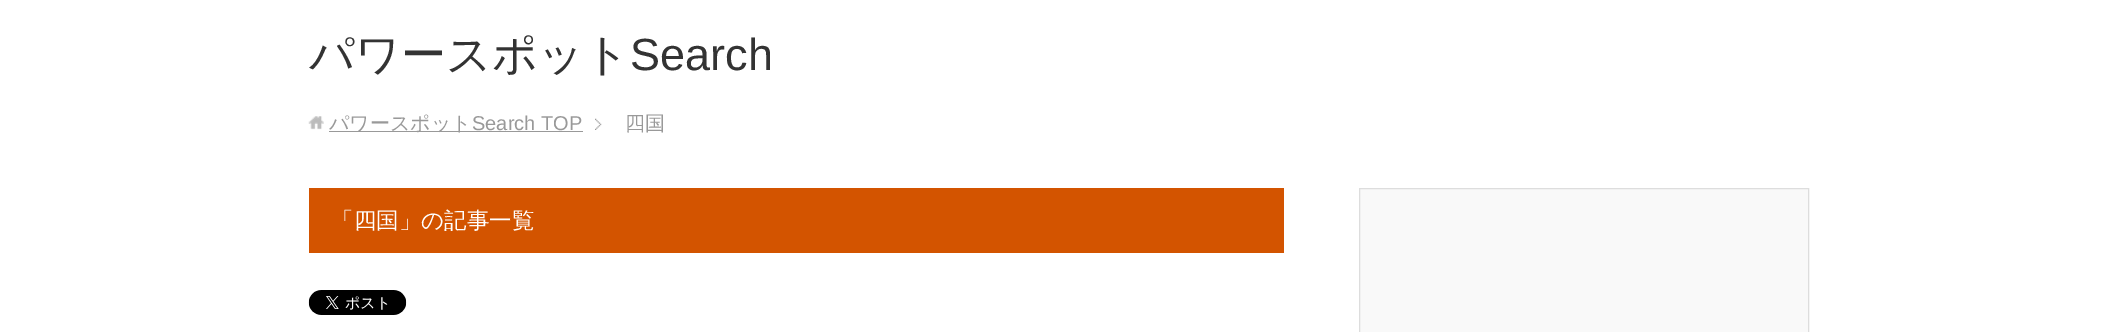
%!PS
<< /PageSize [2117 332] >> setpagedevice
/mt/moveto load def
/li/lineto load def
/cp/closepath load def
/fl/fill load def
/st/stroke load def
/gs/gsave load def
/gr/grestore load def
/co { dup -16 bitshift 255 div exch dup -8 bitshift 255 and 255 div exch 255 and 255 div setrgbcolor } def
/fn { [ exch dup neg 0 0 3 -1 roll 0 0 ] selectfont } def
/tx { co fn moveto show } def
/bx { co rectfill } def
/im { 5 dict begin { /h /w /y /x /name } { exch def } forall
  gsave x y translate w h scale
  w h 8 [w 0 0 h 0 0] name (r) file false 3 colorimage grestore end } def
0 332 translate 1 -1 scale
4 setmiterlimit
0 0 2117 332 16#FFFFFF bx
(media/1.raw) 595 118 7 12 im
(media/2.raw) 308 116 16 14 im
329 131 254 1 16#999999 bx
309 188 975 65 16#D35400 bx
(media/3.raw) 308 290 99 25 im
16#F9F9F9 co
1359.5 188.5 mt 1808.5 188.5 li 1808.5 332.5 li 1359.5 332.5 li cp gs fl gr
16#DDDDDD co
st
(パワースポット) 309 70 /WenQuanYiZenHei-Medium 45 16#333333 tx
(Search) 630 70 /LiberationSans-Regular 45 16#333333 tx
(パワースポット) 329 130 /WenQuanYiZenHei-Medium 20 16#999999 tx
(Search TOP) 472 130 /LiberationSans-Regular 20 16#999999 tx
(四国) 625 130 /WenQuanYiZenHei-Medium 20 16#999999 tx
(「四国」の記事一覧) 331 228 /WenQuanYiZenHei-Medium 22.5 16#FFFFFF tx
showpage
